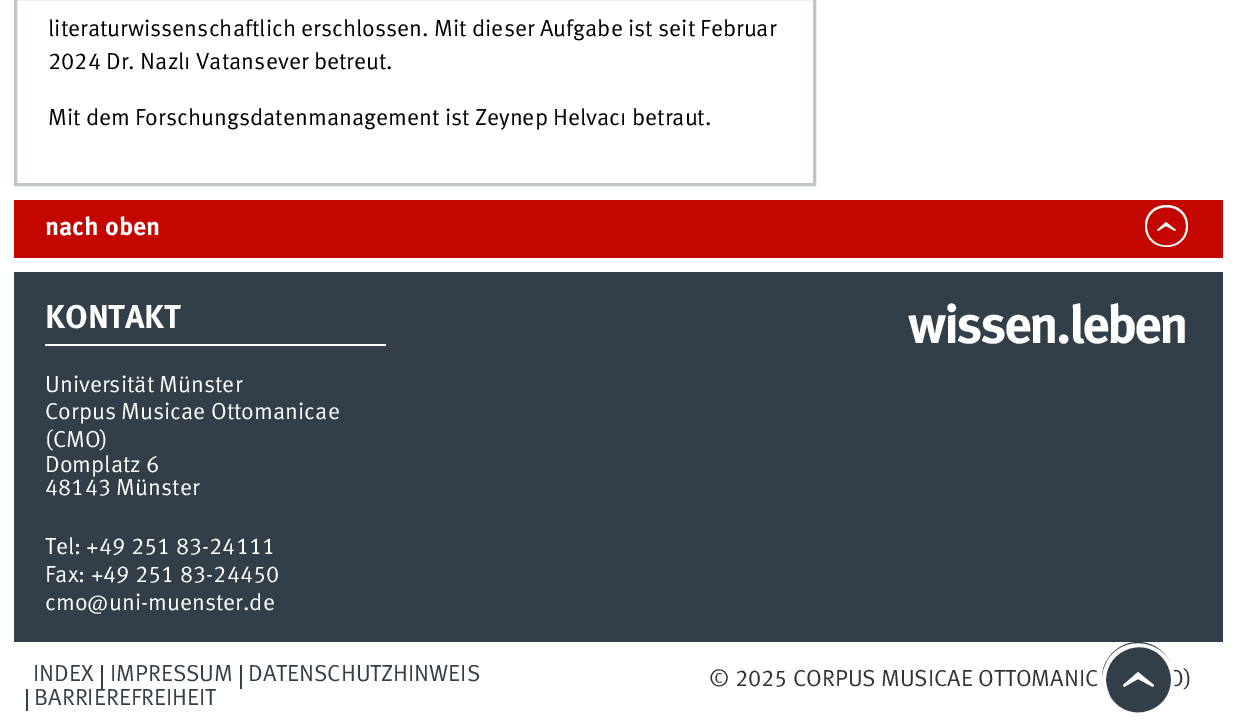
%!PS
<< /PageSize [1235 728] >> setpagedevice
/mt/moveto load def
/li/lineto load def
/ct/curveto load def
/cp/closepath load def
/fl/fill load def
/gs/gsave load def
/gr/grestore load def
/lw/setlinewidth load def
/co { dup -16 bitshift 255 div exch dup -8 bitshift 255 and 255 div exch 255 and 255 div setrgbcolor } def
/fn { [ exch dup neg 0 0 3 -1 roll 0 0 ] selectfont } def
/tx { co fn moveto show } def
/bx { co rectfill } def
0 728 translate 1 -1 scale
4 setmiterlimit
0 0 1235 728 16#FFFFFF bx
16#BEC6C8 co
3 lw
15.5 -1.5 799 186 rectstroke
14 200 1209 58 16#C30600 bx
16#FFFFFF co
1145 226 mt 1145 198 1188 198 1188 226 ct 1188 254 1145 254 1145 226 ct cp 1147 226 mt 1147 252 1186 252 1186 226 ct 1186 201 1147 201 1147 226 ct cp 1157 230 mt 1166 222 li 1176 230 li 1175 231 li 1166 226 li 1158 231 li cp fl
14 272 1209 370 16#333F48 bx
45 344 341 2 16#FFFFFF bx
101 665 2 24 16#333F48 bx
240 665 2 24 16#333F48 bx
26 689 2 22 16#333F48 bx
(literaturwissenschaftlich erschlossen. Mit dieser Aufgabe ist seit Februar) 48 36 /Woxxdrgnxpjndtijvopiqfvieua-Regular 23.2 16#000000 tx
(2024 Dr. Nazlı Vatansever betreut.) 48 69 /Woxxdrgnxpjndtijvopiqfvieua-Regular 23.2 16#000000 tx
(Mit dem Forschungsdatenmanagement ist Zeynep Helvacı betraut.) 48 125 /Woxxdrgnxpjndtijvopiqfvieua-Regular 23.2 16#000000 tx
(nach oben) 45 235 /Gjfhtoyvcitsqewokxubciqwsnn-Bold 25.5 16#FFFFFF tx
(KONTAKT) 45 328 /Gjfhtoyvcitsqewokxubciqwsnn-Bold 33 16#FFFFFF tx
(Universität Münster) 45 392 /Woxxdrgnxpjndtijvopiqfvieua-Regular 23.2 16#FFFFFF tx
(Corpus Musicae Ottomanicae) 45 419 /Woxxdrgnxpjndtijvopiqfvieua-Regular 23.2 16#FFFFFF tx
(\(CMO\)) 45 447 /Woxxdrgnxpjndtijvopiqfvieua-Regular 23.2 16#FFFFFF tx
(Domplatz 6) 45 472 /Woxxdrgnxpjndtijvopiqfvieua-Regular 23.2 16#FFFFFF tx
(48143 Münster) 45 495 /Woxxdrgnxpjndtijvopiqfvieua-Regular 23.2 16#FFFFFF tx
(Tel: +49 251 83-24111) 45 554 /Woxxdrgnxpjndtijvopiqfvieua-Regular 23.2 16#FFFFFF tx
(Fax: +49 251 83-24450) 45 582 /Woxxdrgnxpjndtijvopiqfvieua-Regular 23.2 16#FFFFFF tx
(cmo@uni-muenster.de) 45 610 /Woxxdrgnxpjndtijvopiqfvieua-Regular 23.2 16#FFFFFF tx
/Gjfhtoyvcitsqewokxubciqwsnn-Bold 54 fn
908 343 mt -2.75 0 (wissen.leben) ashow
(INDEX) 33 681 /Woxxdrgnxpjndtijvopiqfvieua-Regular 23.2 16#333F48 tx
gs
26 665 585 46 rectclip
(IMPRESSUM) 110 681 /Woxxdrgnxpjndtijvopiqfvieua-Regular 23.2 16#333F48 tx
(DATENSCHUTZHINWEIS) 248 681 /Woxxdrgnxpjndtijvopiqfvieua-Regular 23.2 16#333F48 tx
gr
(BARRIEREFREIHEIT) 34 705 /Woxxdrgnxpjndtijvopiqfvieua-Regular 23.2 16#333F48 tx
(© 2025 CORPUS MUSICAE OTTOMANIC) 709 686 /Woxxdrgnxpjndtijvopiqfvieua-Regular 23.2 16#333333 tx
(O\)) 1168 686 /Woxxdrgnxpjndtijvopiqfvieua-Regular 23.2 16#333333 tx
16#333F48 co
1102 678 mt 1102 659 1118 642 1138 642 ct 1158 642 1174 659 1174 678 ct 1174 698 1158 714 1138 714 ct 1118 714 1102 698 1102 678 ct cp fl
16#FFFFFF co
1102 680 mt 1102 672 1105 664 1109 658 ct 1130 630 1175 645 1175 680 ct 1175 688 1172 695 1167 702 ct 1146 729 1102 714 1102 680 ct cp 1106 680 mt 1106 686 1108 692 1111 698 ct 1129 725 1171 712 1171 680 ct 1171 673 1169 667 1165 661 ct 1148 635 1106 648 1106 680 ct cp 1123 685 mt 1138 672 li 1154 685 li 1153 687 li 1138 679 li 1124 687 li cp fl
showpage
